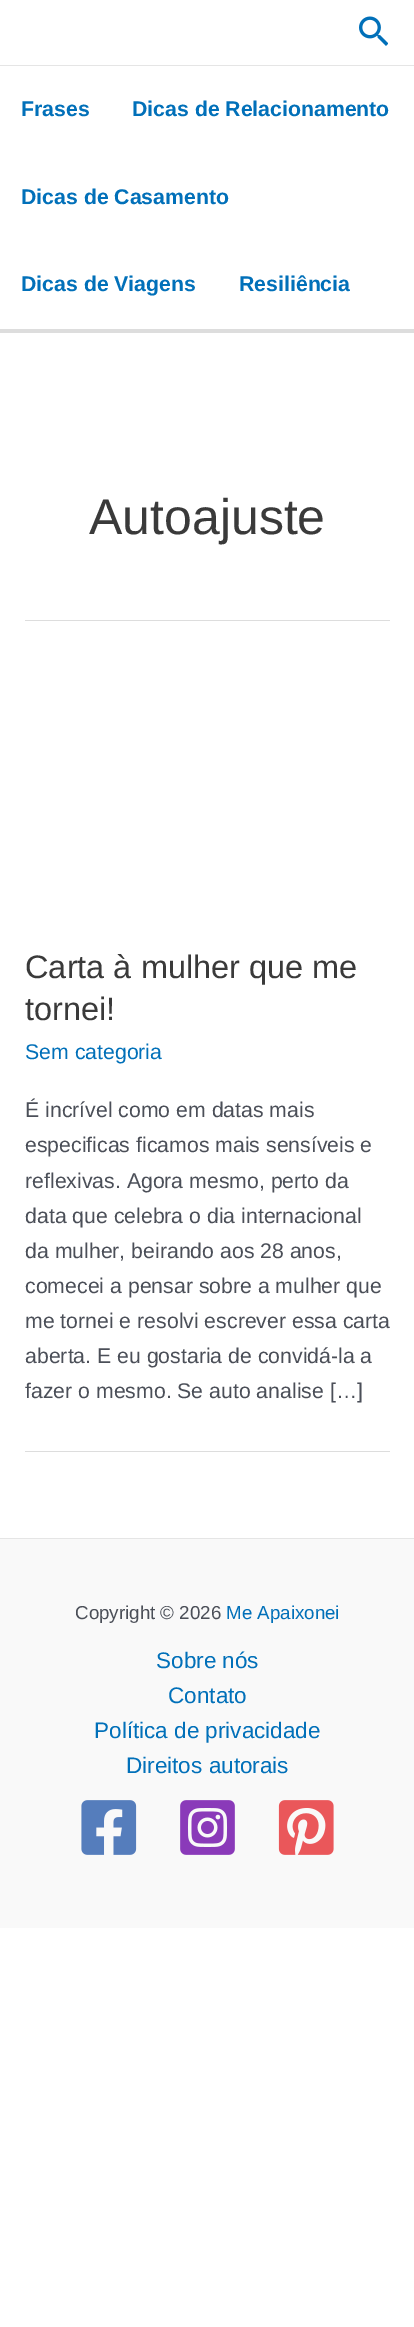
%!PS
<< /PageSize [414 2327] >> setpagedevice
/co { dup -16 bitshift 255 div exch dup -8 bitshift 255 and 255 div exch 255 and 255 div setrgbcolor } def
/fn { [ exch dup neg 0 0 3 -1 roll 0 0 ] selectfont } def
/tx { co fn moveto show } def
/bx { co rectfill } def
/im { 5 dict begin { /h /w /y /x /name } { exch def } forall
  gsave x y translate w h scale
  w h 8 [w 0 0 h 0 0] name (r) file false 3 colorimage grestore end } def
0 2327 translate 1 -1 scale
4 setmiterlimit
0 0 414 2327 16#FFFFFF bx
0 65 414 1 16#E5E5E5 bx
(media/1.raw) 359 16 29 30 im
0 329 414 4 16#DDDDDD bx
25 620 365 1 16#DDDDDD bx
25 1451 365 1 16#DDDDDD bx
0 1539 414 389 16#F9F9F9 bx
0 1538 414 1 16#E5E5E5 bx
(media/2.raw) 81 1800 56 55 im
(media/3.raw) 180 1800 55 55 im
(media/4.raw) 278 1800 56 55 im
(Frases) 21 116 /LiberationSans-Bold 21.25 16#0170B9 tx
(Dicas de Relacionamento) 132 116 /LiberationSans-Bold 21.25 16#0170B9 tx
(Dicas de Casamento) 21 204 /LiberationSans-Bold 21.25 16#0170B9 tx
(Dicas de Viagens) 21 291 /LiberationSans-Bold 21.25 16#0170B9 tx
(Resiliência) 239 291 /LiberationSans-Bold 21.25 16#0170B9 tx
(Autoajuste) 89 534 /LiberationSans-Regular 50 16#3A3A3A tx
(Carta à mulher que me) 25 978 /LiberationSans-Regular 32.5 16#3A3A3A tx
(tornei!) 25 1020 /LiberationSans-Regular 32.5 16#3A3A3A tx
(Sem categoria) 25 1059 /LiberationSans-Regular 21.25 16#0170B9 tx
(É incrível como em datas mais) 25 1117 /LiberationSans-Regular 21.25 16#4B4F58 tx
(especificas ficamos mais sensíveis e) 25 1152 /LiberationSans-Regular 21.25 16#4B4F58 tx
(reflexivas. Agora mesmo, perto da) 25 1188 /LiberationSans-Regular 21.25 16#4B4F58 tx
(data que celebra o dia internacional) 25 1223 /LiberationSans-Regular 21.25 16#4B4F58 tx
(da mulher, beirando aos 28 anos,) 25 1258 /LiberationSans-Regular 21.25 16#4B4F58 tx
(comecei a pensar sobre a mulher que) 25 1293 /LiberationSans-Regular 21.25 16#4B4F58 tx
(me tornei e resolvi escrever essa carta) 25 1328 /LiberationSans-Regular 21.25 16#4B4F58 tx
(aberta. E eu gostaria de convidá-la a) 25 1363 /LiberationSans-Regular 21.25 16#4B4F58 tx
(fazer o mesmo. Se auto analise […]) 25 1398 /LiberationSans-Regular 21.25 16#4B4F58 tx
(Copyright © 2026) 75 1619 /LiberationSans-Regular 18.75 16#4B4F58 tx
(Me Apaixonei) 226 1619 /LiberationSans-Regular 18.75 16#0170B9 tx
(Sobre nós) 156 1668 /LiberationSans-Regular 22.5 16#0170B9 tx
(Contato) 168 1703 /LiberationSans-Regular 22.5 16#0170B9 tx
(Política de privacidade) 94 1738 /LiberationSans-Regular 22.5 16#0170B9 tx
(Direitos autorais) 126 1773 /LiberationSans-Regular 22.5 16#0170B9 tx
showpage
